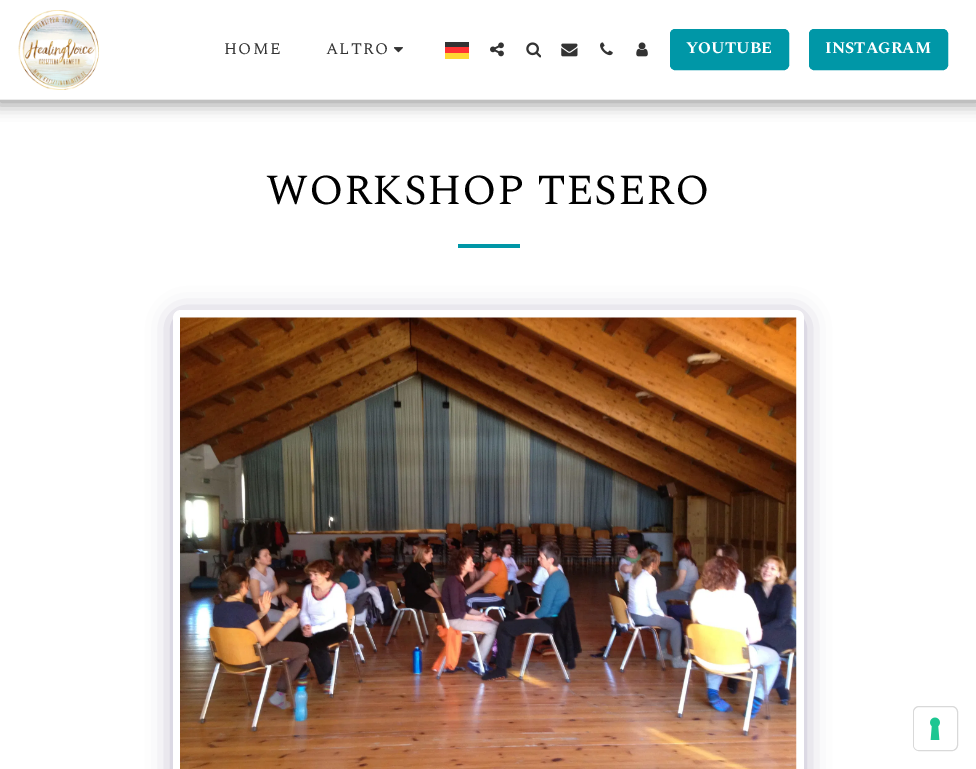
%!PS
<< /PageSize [976 769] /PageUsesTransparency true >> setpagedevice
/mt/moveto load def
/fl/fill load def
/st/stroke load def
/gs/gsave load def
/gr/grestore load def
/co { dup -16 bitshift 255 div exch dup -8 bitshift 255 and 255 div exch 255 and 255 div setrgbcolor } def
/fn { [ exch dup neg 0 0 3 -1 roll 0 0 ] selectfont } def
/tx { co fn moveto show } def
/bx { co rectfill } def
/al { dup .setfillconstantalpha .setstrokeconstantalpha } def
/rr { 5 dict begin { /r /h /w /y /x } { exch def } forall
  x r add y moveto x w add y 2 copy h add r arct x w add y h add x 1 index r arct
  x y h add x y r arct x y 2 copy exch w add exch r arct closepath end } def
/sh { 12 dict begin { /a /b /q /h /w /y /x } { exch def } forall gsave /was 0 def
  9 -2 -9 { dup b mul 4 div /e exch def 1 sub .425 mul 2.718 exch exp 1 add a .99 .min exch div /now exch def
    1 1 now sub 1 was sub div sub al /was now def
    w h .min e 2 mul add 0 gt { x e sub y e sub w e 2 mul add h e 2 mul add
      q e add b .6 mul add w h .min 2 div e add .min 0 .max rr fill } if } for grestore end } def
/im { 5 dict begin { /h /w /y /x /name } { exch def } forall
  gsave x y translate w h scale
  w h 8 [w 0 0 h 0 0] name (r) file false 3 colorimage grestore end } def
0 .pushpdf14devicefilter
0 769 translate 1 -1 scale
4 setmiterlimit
0 0 976 769 16#FFFFFF bx
16#000000 co
-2 0 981 105 0 7.5 .35 sh
0 0 976 99 16#FFFFFF bx
0 99 976 1 16#EBEBEB bx
(media/1.raw) 18 10 81 80 im
(media/2.raw) 394 47 9 6 im
445 53 24 6 16#FFD833 bx
445 42 24 5 16#333334 bx
445 47 24 6 16#FF3333 bx
(media/3.raw) 490 42 14 15 im
(media/4.raw) 526 42 15 16 im
(media/5.raw) 561 43 17 14 im
(media/6.raw) 600 42 13 14 im
(media/7.raw) 636 42 12 15 im
16#0097A7 co
670.5 29.5 118 40 4.5 rr gs fl gr
st
809.5 29.5 138 40 4.5 rr gs fl gr
st
458 244 62 4 16#0097A7 bx
16#4D3F7A co
173 314 631 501 8 12.5 .4 sh
16#FFFFFF co
173 310 631 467 8 rr fl
(media/8.raw) 180 317 617 452 im
16#D9D9D9 co
913.5 706.5 44 44 5.5 rr st
16#FFFFFF co
914 708 42 42 5 rr fl
(media/9.raw) 930 717 10 23 im
/Spectral-Regular 16.25 fn
16#333333 co
224 54 mt 1.25 0 (HOME) ashow
326 54 mt 1.25 0 (ALTRO) ashow
(YOUTUBE) 686 53 /Spectral-Bold 16.25 16#FFFFFF tx
(INSTAGRAM) 825 53 /Spectral-Bold 16.25 16#FFFFFF tx
/Spectral-Regular 42.75 fn
16#000000 co
266 204 mt .6 0 (WORKSHOP TESERO) ashow
.poppdf14devicefilter showpage
